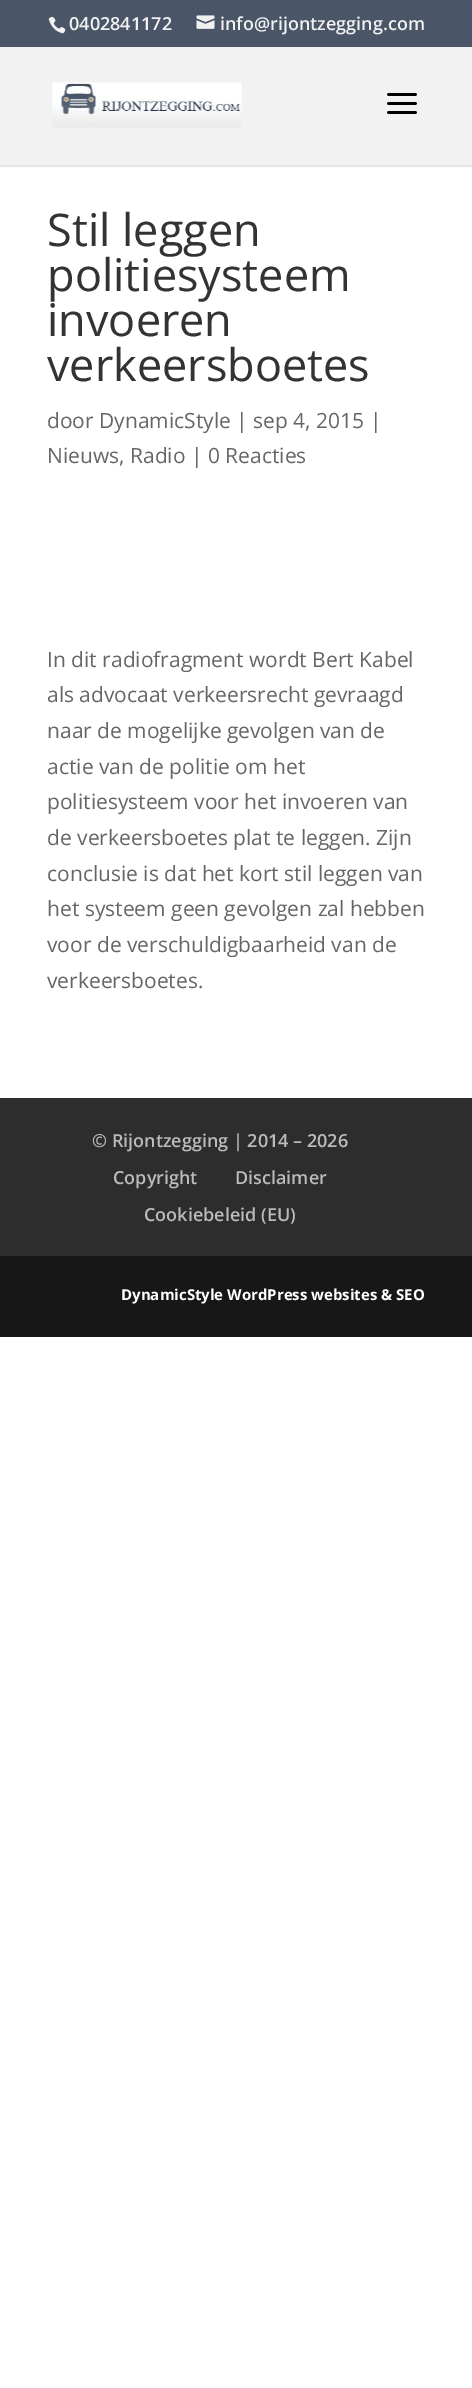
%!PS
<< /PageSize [472 2388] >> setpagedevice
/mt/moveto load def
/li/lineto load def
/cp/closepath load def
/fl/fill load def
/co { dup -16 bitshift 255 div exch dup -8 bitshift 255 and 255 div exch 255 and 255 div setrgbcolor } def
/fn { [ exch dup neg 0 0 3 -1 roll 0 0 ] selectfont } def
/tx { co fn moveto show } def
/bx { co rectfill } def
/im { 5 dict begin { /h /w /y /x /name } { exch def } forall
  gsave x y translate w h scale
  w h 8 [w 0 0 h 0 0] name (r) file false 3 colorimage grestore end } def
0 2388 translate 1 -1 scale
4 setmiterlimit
0 0 472 2388 16#FFFFFF bx
0 0 472 47 16#4A5667 bx
(media/1.raw) 48 16 18 18 im
(media/2.raw) 196 15 19 14 im
16#E6E6E6 co
0 165 mt 0 167 li 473 167 li 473 47 li 472 47 li 472 165 li cp fl
0 47 472 118 16#F2F2F2 bx
(media/3.raw) 52 82 190 46 im
(media/4.raw) 387 93 30 21 im
0 1098 472 158 16#2D2D2D bx
0 1256 472 81 16#171717 bx
(0402841172) 69 30 /OpenSans-SemiBold 18 16#F1F1F1 tx
(info@rijontzegging.com) 220 30 /OpenSans-SemiBold 18 16#F1F1F1 tx
(Stil leggen) 47 246 /OpenSans-Regular 45 16#333333 tx
(politiesysteem) 47 291 /OpenSans-Regular 45 16#333333 tx
(invoeren) 47 336 /OpenSans-Regular 45 16#333333 tx
(verkeersboetes) 47 381 /OpenSans-Regular 45 16#333333 tx
(door DynamicStyle | sep 4, 2015 |) 47 428 /OpenSans-Regular 21 16#666666 tx
(Nieuws, Radio | 0 Reacties) 47 463 /OpenSans-Regular 21 16#666666 tx
(In dit radiofragment wordt Bert Kabel) 47 667 /OpenSans-Regular 21 16#666666 tx
(als advocaat verkeersrecht gevraagd) 47 702 /OpenSans-Regular 21 16#666666 tx
(naar de mogelijke gevolgen van de) 47 738 /OpenSans-Regular 21 16#666666 tx
(actie van de politie om het) 47 774 /OpenSans-Regular 21 16#666666 tx
(politiesysteem voor het invoeren van) 47 809 /OpenSans-Regular 21 16#666666 tx
(de verkeersboetes plat te leggen. Zijn) 47 845 /OpenSans-Regular 21 16#666666 tx
(conclusie is dat het kort stil leggen van) 47 881 /OpenSans-Regular 21 16#666666 tx
(het systeem geen gevolgen zal hebben) 47 916 /OpenSans-Regular 21 16#666666 tx
(voor de verschuldigbaarheid van de) 47 952 /OpenSans-Regular 21 16#666666 tx
(verkeersboetes.) 47 988 /OpenSans-Regular 21 16#666666 tx
(© Rijontzegging | 2014 – 2026) 92 1147 /OpenSans-SemiBold 18 16#BBBBBB tx
(Copyright) 113 1184 /OpenSans-SemiBold 18 16#BBBBBB tx
(Disclaimer) 235 1184 /OpenSans-SemiBold 18 16#BBBBBB tx
(Cookiebeleid \(EU\)) 144 1221 /OpenSans-SemiBold 18 16#BBBBBB tx
(DynamicStyle WordPress websites & SEO) 121 1300 /OpenSans-Bold 15 16#FFFFFF tx
showpage
